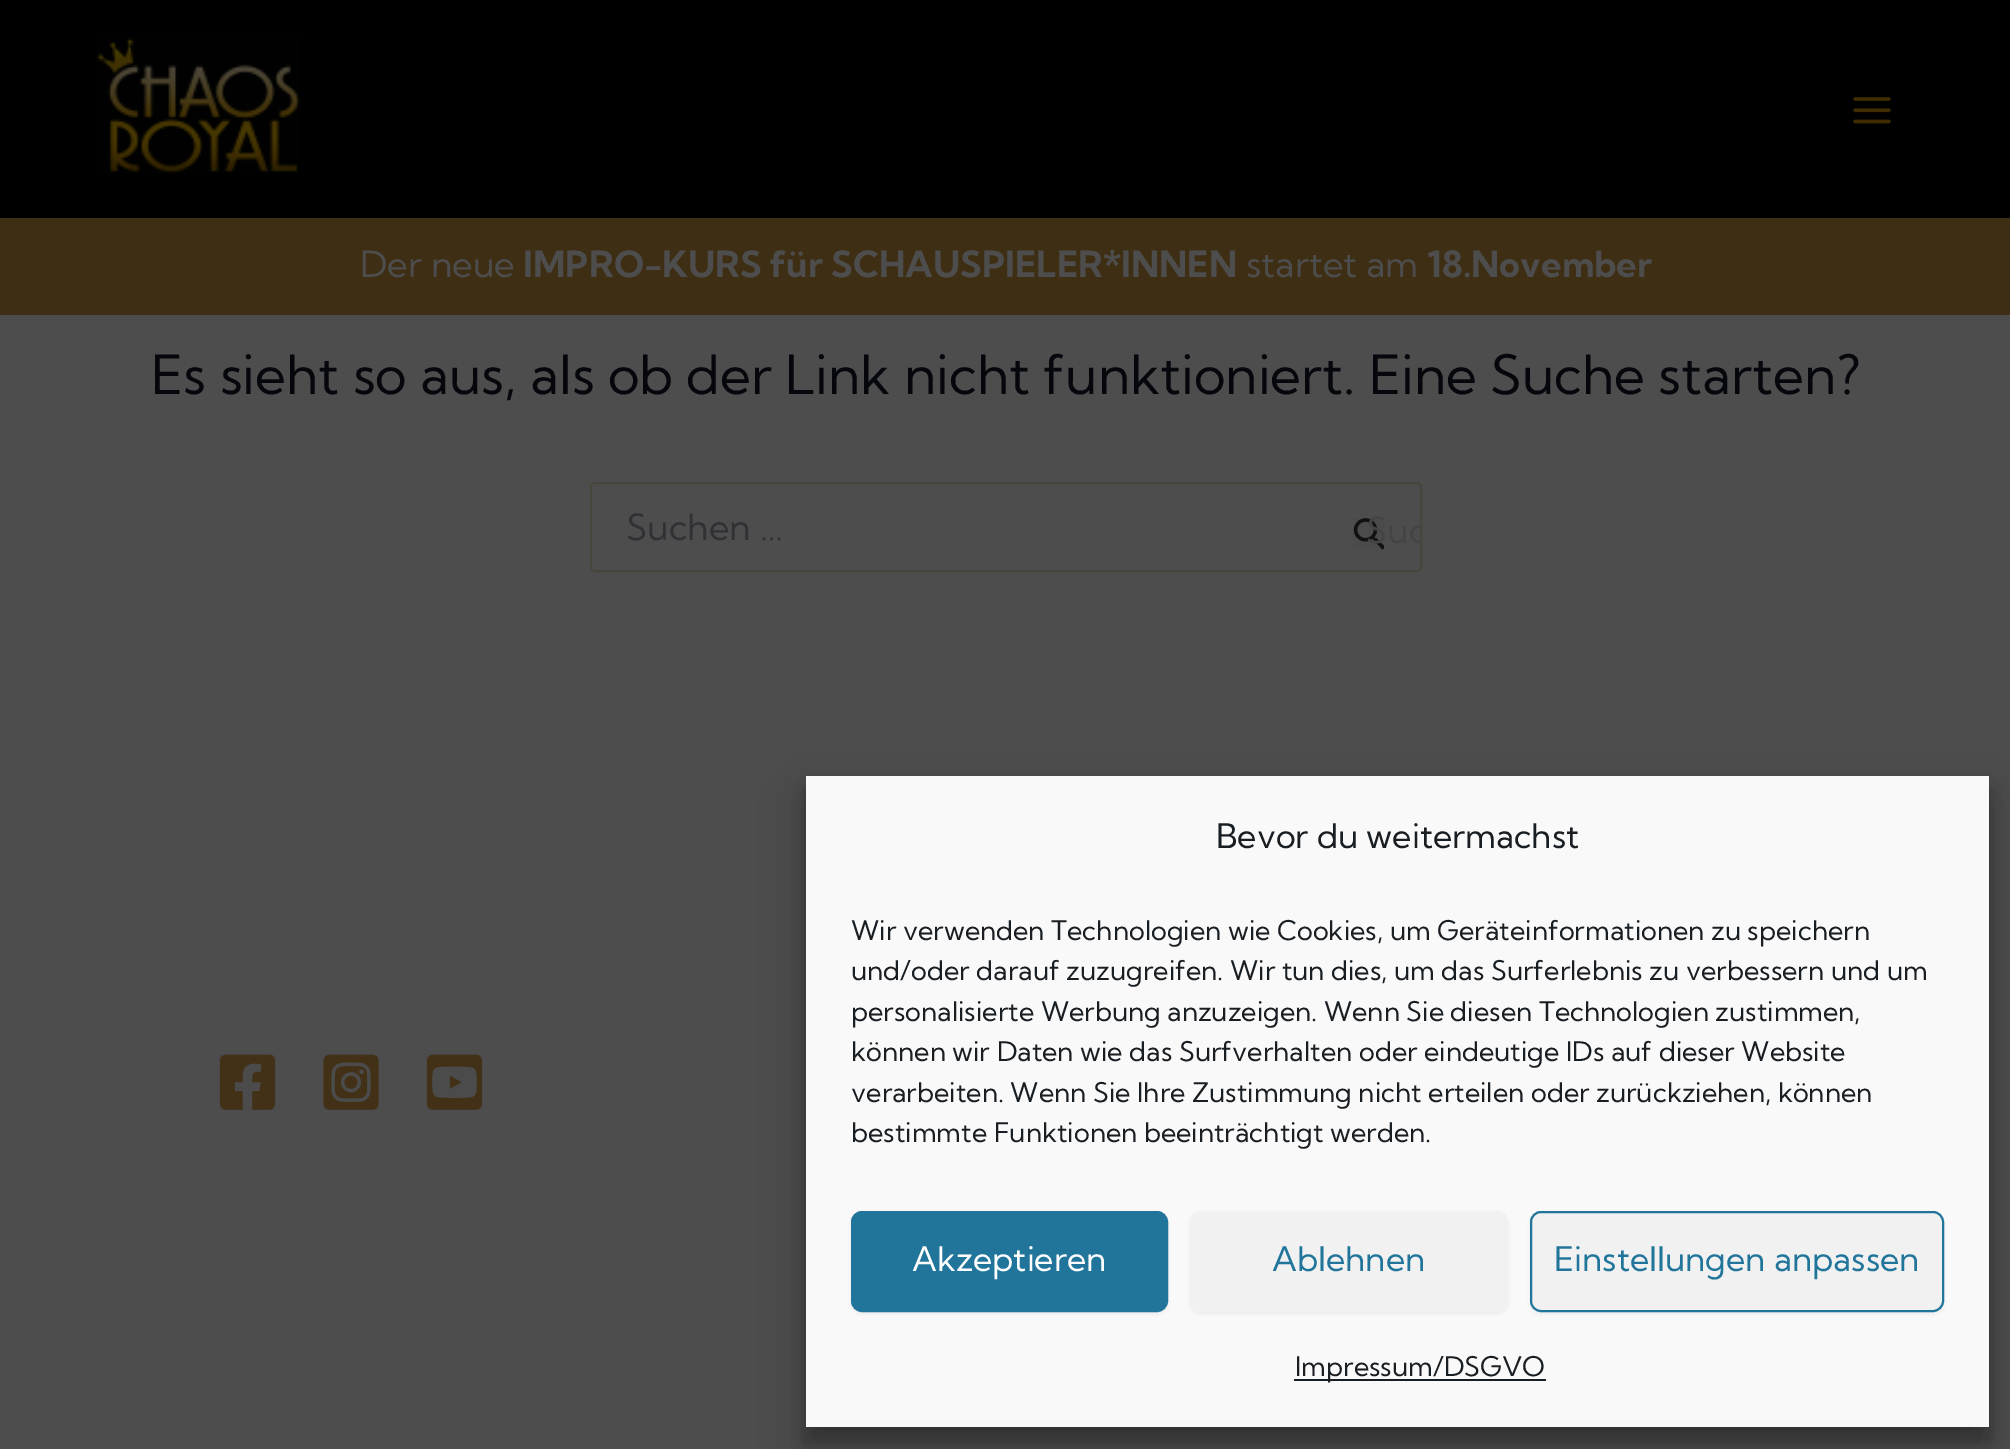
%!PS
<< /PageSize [2010 1449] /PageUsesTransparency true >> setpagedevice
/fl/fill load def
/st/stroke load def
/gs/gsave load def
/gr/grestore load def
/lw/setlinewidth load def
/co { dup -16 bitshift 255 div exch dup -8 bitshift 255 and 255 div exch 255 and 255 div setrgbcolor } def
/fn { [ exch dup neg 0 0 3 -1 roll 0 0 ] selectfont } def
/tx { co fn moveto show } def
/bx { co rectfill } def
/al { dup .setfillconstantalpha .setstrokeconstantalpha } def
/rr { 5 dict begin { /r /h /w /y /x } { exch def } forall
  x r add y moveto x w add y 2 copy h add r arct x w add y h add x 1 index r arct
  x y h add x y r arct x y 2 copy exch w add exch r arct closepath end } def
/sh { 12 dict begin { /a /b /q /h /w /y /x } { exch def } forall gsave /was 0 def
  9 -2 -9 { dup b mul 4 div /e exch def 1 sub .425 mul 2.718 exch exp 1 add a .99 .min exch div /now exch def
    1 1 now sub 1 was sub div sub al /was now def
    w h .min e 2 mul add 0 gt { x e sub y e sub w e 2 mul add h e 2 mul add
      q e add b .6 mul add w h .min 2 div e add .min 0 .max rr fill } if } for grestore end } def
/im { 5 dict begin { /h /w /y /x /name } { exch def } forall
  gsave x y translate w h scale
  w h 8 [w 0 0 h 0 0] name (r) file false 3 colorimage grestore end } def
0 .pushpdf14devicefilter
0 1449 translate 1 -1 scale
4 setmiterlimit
0 0 2010 1449 16#4D4D4D bx
0 0 2010 218 16#000000 bx
(media/1.raw) 96 37 204 137 im
(media/2.raw) 1853 97 38 27 im
0 218 2010 97 16#3E2E13 bx
16#48453B co
2 lw
591 483 830 88 4 rr st
(media/3.raw) 1353 518 31 32 im
(media/4.raw) 219 1054 57 56 im
(media/5.raw) 323 1054 56 56 im
(media/6.raw) 426 1054 57 56 im
16#000000 co
806 790 1183 650 0 7 .23 sh
806 799 1183 650 0 22.5 .19 sh
806 776 1183 651 16#F9F9F9 bx
16#000000 co
851 1213 317 101 11 2 .05 sh
16#21759B co
852 1212 315 99 10 rr gs fl gr
st
16#000000 co
1190 1213 318 101 11 2 .05 sh
16#F1F1F1 co
1190 1211 318 101 11 rr fl
16#000000 co
1530 1213 414 101 11 2 .05 sh
16#F1F1F1 co
1531 1212 412 99 10 rr gs fl gr
16#21759B co
st
1294 1379 252 2 16#191E23 bx
(Der neue) 360 277 /KumbhSans-Regular 36 16#4D4D4D tx
(IMPRO-KURS für SCHAUSPIELER*INNEN) 523 277 /KumbhSans-Bold 36 16#4D4D4D tx
(startet am) 1246 277 /KumbhSans-Regular 36 16#4D4D4D tx
(18.November) 1427 277 /KumbhSans-Bold 36 16#4D4D4D tx
(Es sieht so aus, als ob der Link nicht funktioniert. Eine Suche starten?) 151 394 /KumbhSans-Regular 54 16#05070D tx
(Suchen …) 626 540 /KumbhSans-Regular 36 16#2F3135 tx
gs
1321 482 101 94 5 rr clip newpath
(Suc) 1366 543 /KumbhSans-Regular 36 16#444444 tx
gr
(Bevor du weitermachst) 1216 848 /KumbhSans-Regular 33.75 16#191E23 tx
(Wir verwenden Technologien wie Cookies, um Geräteinformationen zu speichern) 851 940 /KumbhSans-Regular 27 16#191E23 tx
(und/oder darauf zuzugreifen. Wir tun dies, um das Surferlebnis zu verbessern und um) 851 980 /KumbhSans-Regular 27 16#191E23 tx
(personalisierte Werbung anzuzeigen. Wenn Sie diesen Technologien zustimmen,) 851 1021 /KumbhSans-Regular 27 16#191E23 tx
(können wir Daten wie das Surfverhalten oder eindeutige IDs auf dieser Website) 851 1061 /KumbhSans-Regular 27 16#191E23 tx
(verarbeiten. Wenn Sie Ihre Zustimmung nicht erteilen oder zurückziehen, können) 851 1102 /KumbhSans-Regular 27 16#191E23 tx
(bestimmte Funktionen beeinträchtigt werden.) 851 1142 /KumbhSans-Regular 27 16#191E23 tx
(Akzeptieren) 912 1271 /KumbhSans-Regular 33.75 16#FFFFFF tx
(Ablehnen) 1272 1271 /KumbhSans-Regular 33.75 16#21759B tx
(Einstellungen anpassen) 1554 1271 /KumbhSans-Regular 33.75 16#21759B tx
(Impressum/DSGVO) 1295 1376 /KumbhSans-Regular 27 16#191E23 tx
.poppdf14devicefilter showpage
